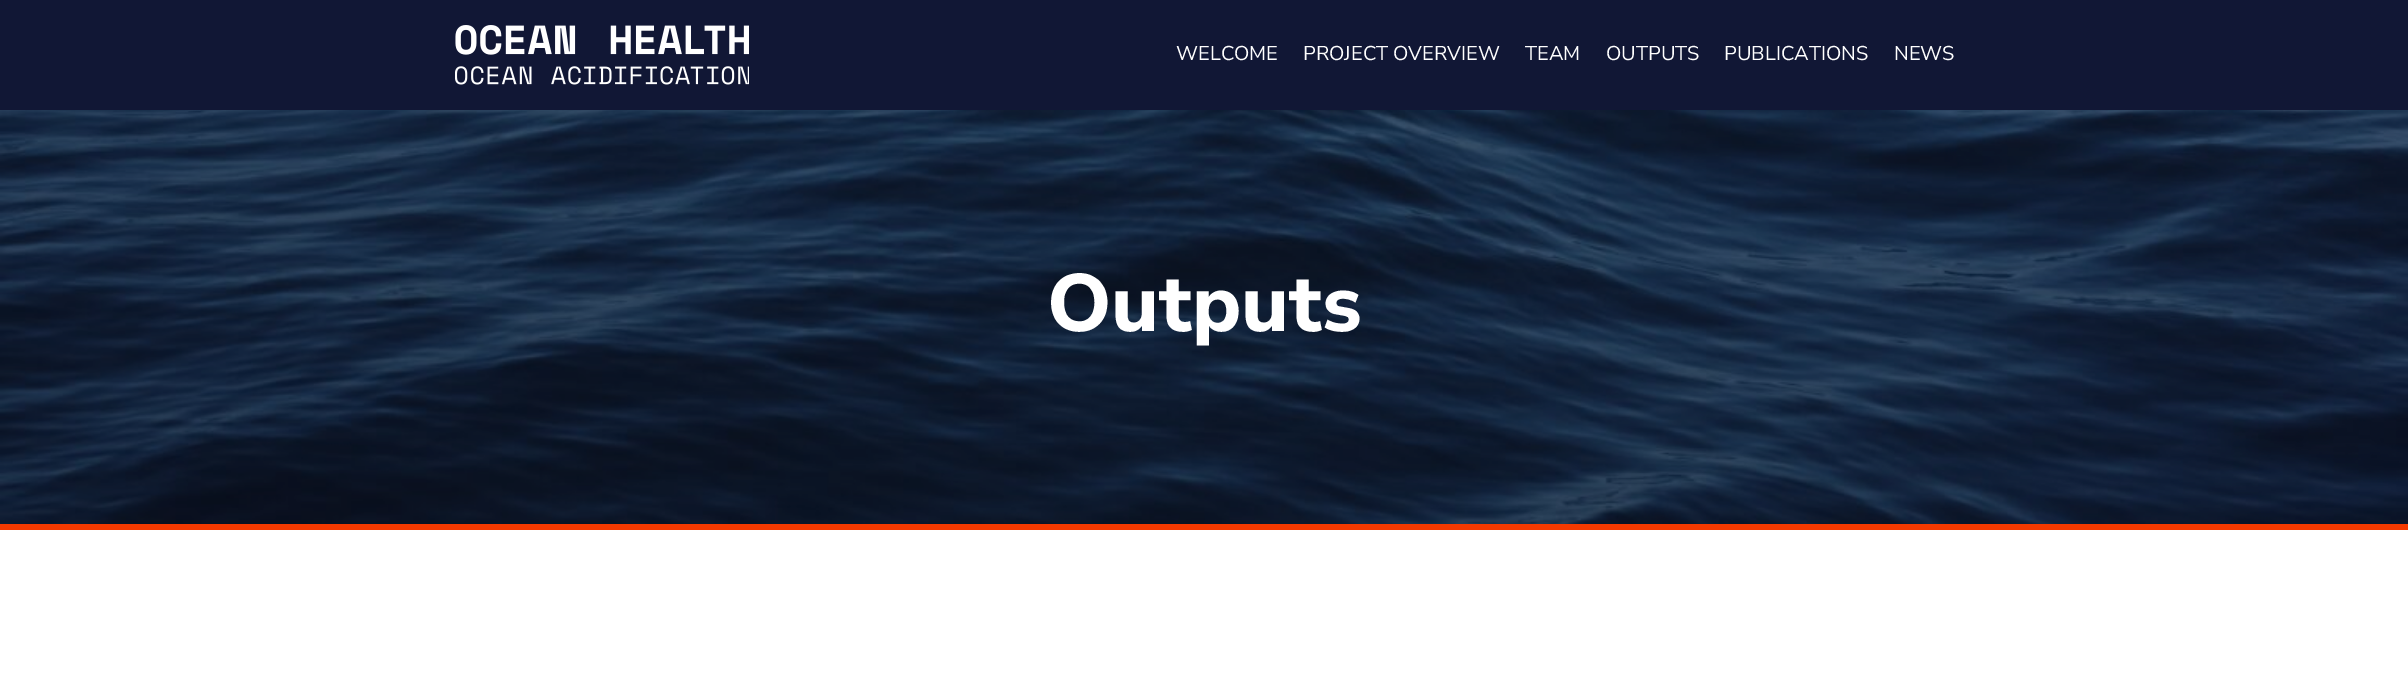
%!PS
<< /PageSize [2408 700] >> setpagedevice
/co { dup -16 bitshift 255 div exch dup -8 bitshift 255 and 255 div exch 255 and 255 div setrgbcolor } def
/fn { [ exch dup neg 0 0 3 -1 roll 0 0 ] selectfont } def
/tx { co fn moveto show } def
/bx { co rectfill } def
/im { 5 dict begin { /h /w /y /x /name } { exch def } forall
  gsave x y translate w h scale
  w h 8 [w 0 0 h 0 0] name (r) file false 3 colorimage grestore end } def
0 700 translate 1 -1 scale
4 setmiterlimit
0 0 2408 700 16#FFFFFF bx
0 0 2408 524 16#111735 bx
(media/1.raw) 455 25 294 60 im
(media/2.raw) 0 110 2408 414 im
0 524 2408 6 16#F43900 bx
(WELCOME) 1176 60 /NunitoSans-Regular 20 16#FFFFFF tx
(PROJECT OVERVIEW) 1303 60 /NunitoSans-Regular 20 16#FFFFFF tx
(TEAM) 1525 60 /NunitoSans-Regular 20 16#FFFFFF tx
(OUTPUTS) 1606 60 /NunitoSans-Regular 20 16#FFFFFF tx
(PUBLICATIONS) 1724 60 /NunitoSans-Regular 20 16#FFFFFF tx
(NEWS) 1894 60 /NunitoSans-Regular 20 16#FFFFFF tx
(Outputs) 1047 331 /NunitoSans-ExtraBold 81 16#FFFFFF tx
showpage
